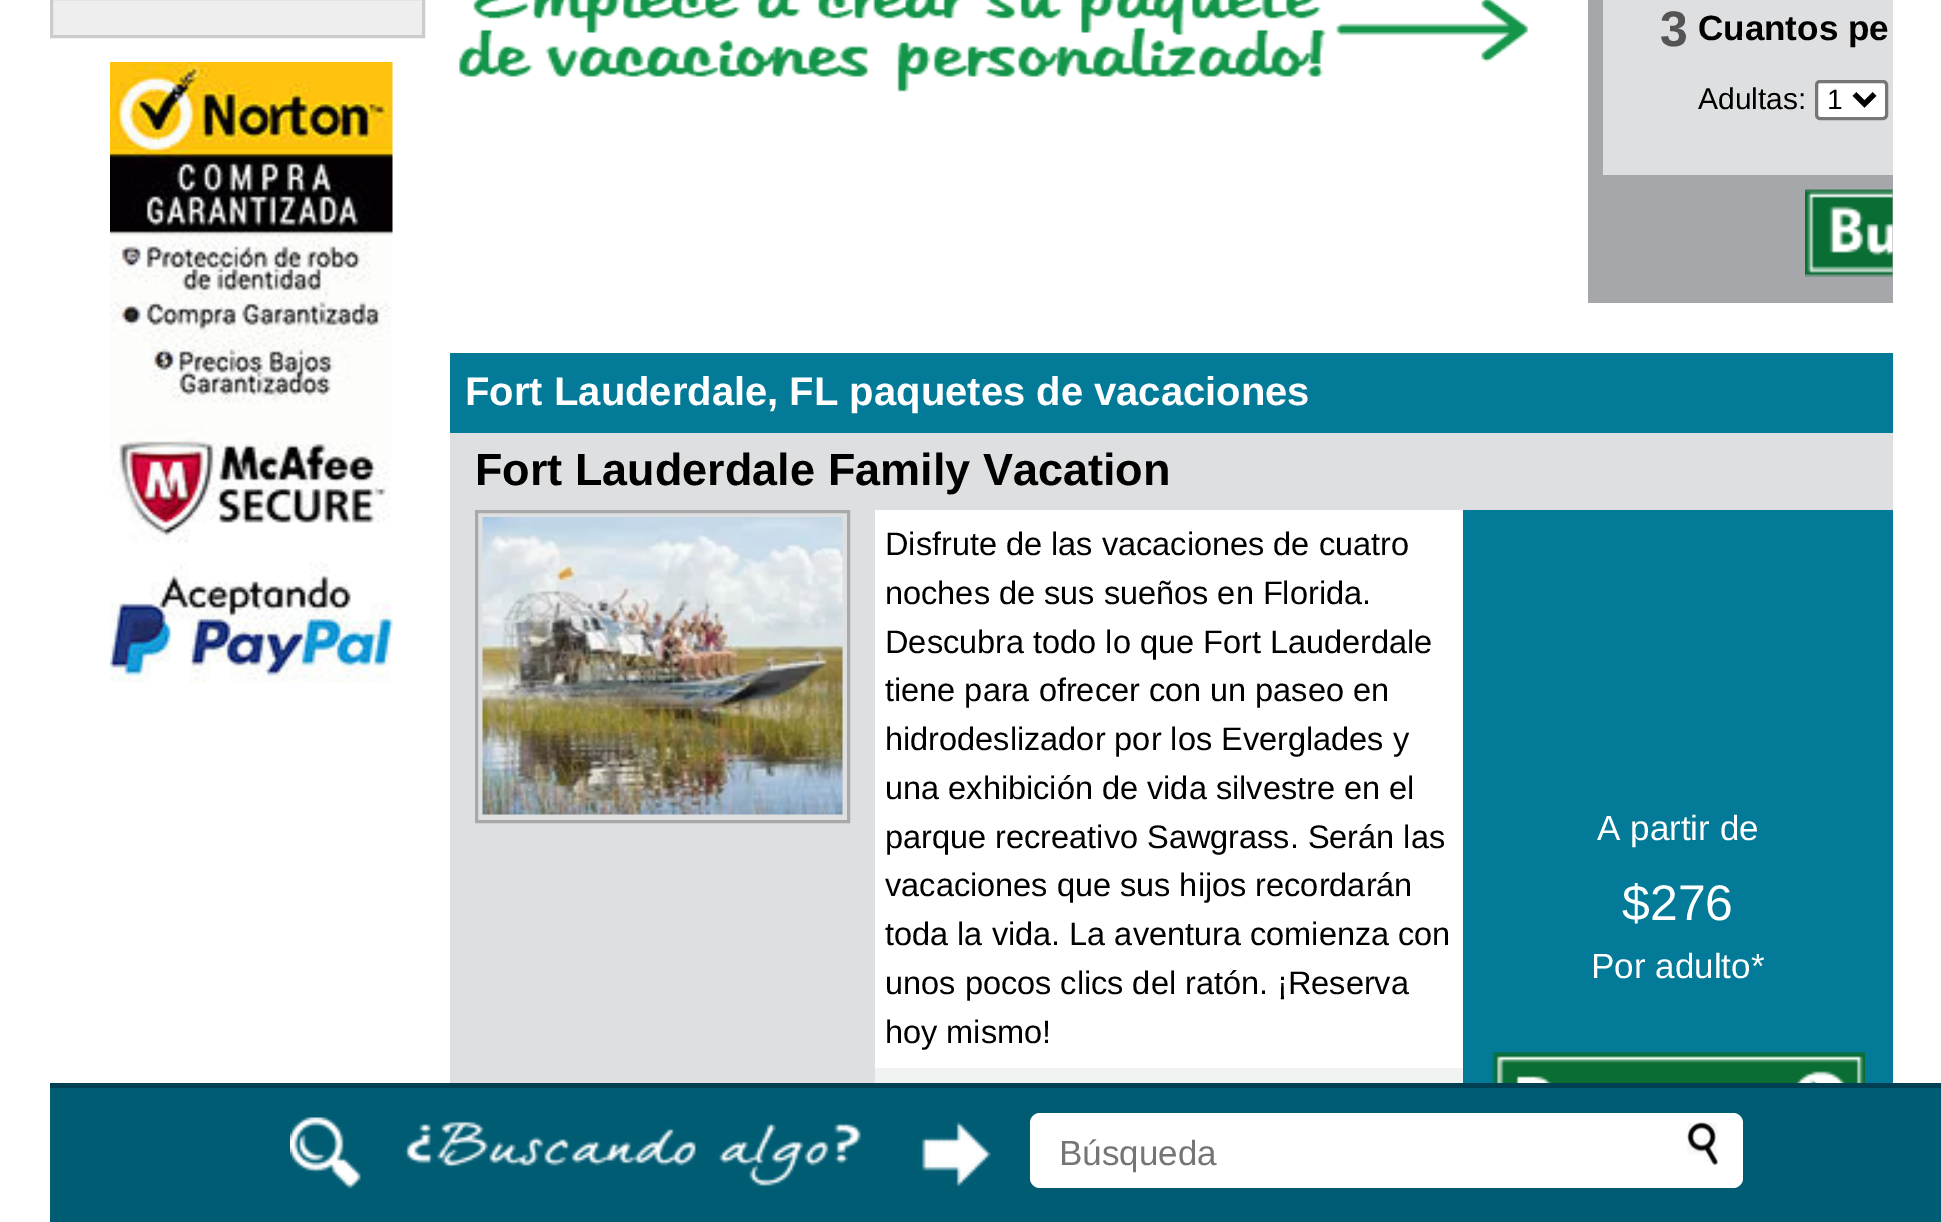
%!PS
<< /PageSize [1941 1222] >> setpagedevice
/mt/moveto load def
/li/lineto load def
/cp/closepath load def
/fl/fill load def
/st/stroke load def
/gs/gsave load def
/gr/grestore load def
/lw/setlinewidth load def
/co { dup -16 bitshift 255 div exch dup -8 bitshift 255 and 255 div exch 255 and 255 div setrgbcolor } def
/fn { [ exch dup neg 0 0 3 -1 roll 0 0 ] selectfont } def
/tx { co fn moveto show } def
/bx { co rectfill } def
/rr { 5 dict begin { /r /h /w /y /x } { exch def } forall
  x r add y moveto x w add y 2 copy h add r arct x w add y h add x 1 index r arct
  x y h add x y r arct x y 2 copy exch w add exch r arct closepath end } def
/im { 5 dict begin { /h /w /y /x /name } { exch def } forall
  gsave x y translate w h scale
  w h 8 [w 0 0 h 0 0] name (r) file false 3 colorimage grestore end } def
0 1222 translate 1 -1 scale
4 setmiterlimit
0 0 1941 1222 16#FFFFFF bx
16#EEEEEE co
51.5 -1.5 mt 423.5 -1.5 li 423.5 36.5 li 51.5 36.5 li cp gs fl gr
16#CCCCCC co
3 lw
st
(media/1.raw) 110 62 283 621 im
(media/2.raw) 459 0 1069 92 im
1588 0 305 303 16#A5A7AA bx
1603 0 290 175 16#DEDFE0 bx
16#FFFFFF co
1816.5 81.5 70 37 3.5 rr gs fl gr
16#767676 co
st
16#000000 co
5 lw
1854.5 94 mt 1864.5 104 li 1874.5 94 li st
(media/3.raw) 1805 189 88 88 im
450 353 1443 80 16#037B98 bx
450 433 1443 77 16#DEDFE0 bx
450 510 425 573 16#DEDFE0 bx
16#A9A9A9 co
3 lw
476.5 511.5 372 310 rectstroke
(media/4.raw) 482 517 361 298 im
1463 510 430 573 16#037B98 bx
(media/5.raw) 1492 1052 373 31 im
875 1068 588 15 16#F1F2F2 bx
50 1088 1891 134 16#005C73 bx
50 1083 1891 5 16#004052 bx
(media/6.raw) 290 1117 701 72 im
16#FFFFFF co
1030 1113 713 75 10 rr fl
(media/7.raw) 1687 1122 31 43 im
(3) 1660 46 /LiberationSans-Bold 50 16#545454 tx
(Cuantos pe) 1698 40 /LiberationSans-Bold 35 16#000000 tx
(Adultas:) 1698 109 /LiberationSans-Regular 30 16#000000 tx
(1) 1827 109 /LiberationSans-Regular 28 16#000000 tx
(Fort Lauderdale, FL paquetes de vacaciones) 465 405 /LiberationSans-Bold 40 16#FFFFFF tx
(Fort Lauderdale Family Vacation) 475 485 /LiberationSans-Bold 45 16#000000 tx
(Disfrute de las vacaciones de cuatro) 885 555 /LiberationSans-Regular 32.5 16#000000 tx
(noches de sus sueños en Florida.) 885 604 /LiberationSans-Regular 32.5 16#000000 tx
(Descubra todo lo que Fort Lauderdale) 885 653 /LiberationSans-Regular 32.5 16#000000 tx
(tiene para ofrecer con un paseo en) 885 701 /LiberationSans-Regular 32.5 16#000000 tx
(hidrodeslizador por los Everglades y) 885 750 /LiberationSans-Regular 32.5 16#000000 tx
(una exhibición de vida silvestre en el) 885 799 /LiberationSans-Regular 32.5 16#000000 tx
(parque recreativo Sawgrass. Serán las) 885 848 /LiberationSans-Regular 32.5 16#000000 tx
(vacaciones que sus hijos recordarán) 885 896 /LiberationSans-Regular 32.5 16#000000 tx
(toda la vida. La aventura comienza con) 885 945 /LiberationSans-Regular 32.5 16#000000 tx
(unos pocos clics del ratón. ¡Reserva) 885 994 /LiberationSans-Regular 32.5 16#000000 tx
(hoy mismo!) 885 1043 /LiberationSans-Regular 32.5 16#000000 tx
(A partir de) 1597 840 /LiberationSans-Regular 35 16#FFFFFF tx
($276) 1622 920 /LiberationSans-Regular 50 16#FFFFFF tx
(Por adulto*) 1591 978 /LiberationSans-Regular 35 16#FFFFFF tx
(Búsqueda) 1059 1165 /LiberationSans-Regular 35 16#757575 tx
showpage
